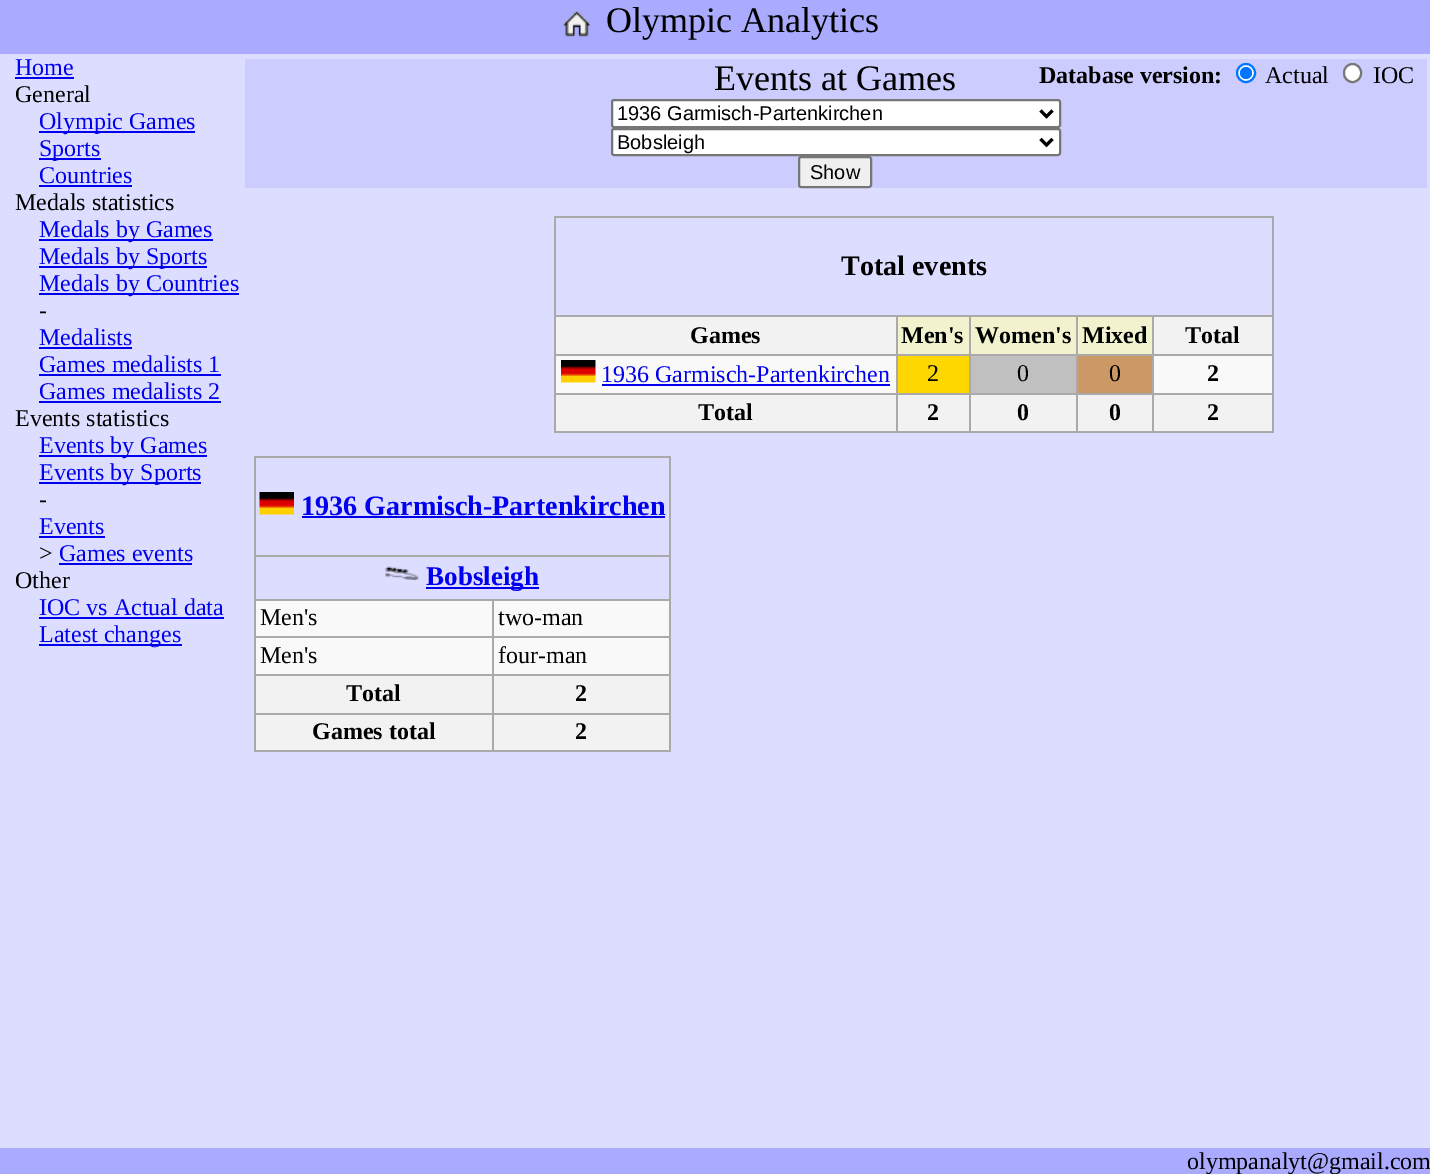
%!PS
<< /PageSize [1430 1174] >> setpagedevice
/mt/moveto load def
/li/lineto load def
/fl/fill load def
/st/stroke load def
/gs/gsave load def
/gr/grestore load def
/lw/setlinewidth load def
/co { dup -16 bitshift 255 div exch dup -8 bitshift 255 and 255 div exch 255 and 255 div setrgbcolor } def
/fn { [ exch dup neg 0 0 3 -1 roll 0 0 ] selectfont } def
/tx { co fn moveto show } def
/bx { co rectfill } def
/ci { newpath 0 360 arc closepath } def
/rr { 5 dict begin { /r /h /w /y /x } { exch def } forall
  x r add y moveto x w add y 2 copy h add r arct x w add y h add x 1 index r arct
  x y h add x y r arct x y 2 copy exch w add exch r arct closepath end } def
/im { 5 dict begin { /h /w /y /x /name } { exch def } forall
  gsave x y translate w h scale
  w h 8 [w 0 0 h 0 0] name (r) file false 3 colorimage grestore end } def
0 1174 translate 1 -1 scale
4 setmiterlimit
0 0 1430 1174 16#AAAAFF bx
(media/1.raw) 563 11 27 26 im
0 54 1430 1094 16#DDDDFF bx
15 77 59 2 16#0000EE bx
39 131 156 2 16#0000EE bx
39 158 62 2 16#0000EE bx
39 185 93 2 16#0000EE bx
39 239 174 2 16#0000EE bx
39 266 168 2 16#0000EE bx
39 293 200 2 16#0000EE bx
39 347 93 2 16#0000EE bx
39 374 182 2 16#0000EE bx
39 401 182 2 16#0000EE bx
39 455 168 2 16#0000EE bx
39 482 162 2 16#0000EE bx
39 536 66 2 16#0000EE bx
59 563 133 2 16#0000EE bx
39 617 185 2 16#0000EE bx
39 644 143 2 16#0000EE bx
245 59 1182 129 16#CCCCFF bx
16#FFFFFF co
1246 73 9 ci gs fl gr
16#0075FF co
2 lw
st
1246 73 6 ci fl
16#FFFFFF co
1344 64 17 18 8.5 rr gs fl gr
16#767676 co
st
16#FFFFFF co
612 100 448 27 2 rr gs fl gr
16#767676 co
st
16#000000 co
3 lw
1040.5 110.5 mt 1046.5 116.5 li 1052.5 110.5 li st
16#FFFFFF co
612 129 448 26 2 rr gs fl gr
16#767676 co
2 lw
st
16#000000 co
3 lw
1040.5 139 mt 1046.5 145 li 1052.5 139 li st
16#EFEFEF co
799 157 72 30 2 rr gs fl gr
16#767676 co
2 lw
st
556 356 716 37 16#F9F9F9 bx
554 216 720 2 16#AAAAAA bx
1272 216 2 216 16#AAAAAA bx
554 431 720 2 16#AAAAAA bx
554 216 2 216 16#AAAAAA bx
556 317 340 37 16#F2F2F2 bx
1152 315 122 2 16#AAAAAA bx
1152 354 122 2 16#AAAAAA bx
1152 393 122 2 16#AAAAAA bx
1152 393 2 39 16#AAAAAA bx
1076 393 78 2 16#AAAAAA bx
1152 354 2 41 16#AAAAAA bx
1076 354 78 2 16#AAAAAA bx
1152 315 2 41 16#AAAAAA bx
1076 315 78 2 16#AAAAAA bx
1076 393 2 39 16#AAAAAA bx
969 393 108 2 16#AAAAAA bx
1076 354 2 41 16#AAAAAA bx
969 354 108 2 16#AAAAAA bx
1076 315 2 41 16#AAAAAA bx
969 315 108 2 16#AAAAAA bx
969 393 2 39 16#AAAAAA bx
896 393 75 2 16#AAAAAA bx
969 354 2 41 16#AAAAAA bx
896 354 75 2 16#AAAAAA bx
969 315 2 41 16#AAAAAA bx
896 315 75 2 16#AAAAAA bx
896 393 2 39 16#AAAAAA bx
554 393 343 2 16#AAAAAA bx
896 354 2 41 16#AAAAAA bx
554 354 343 2 16#AAAAAA bx
896 315 2 41 16#AAAAAA bx
554 315 343 2 16#AAAAAA bx
898 317 71 37 16#F2F2CE bx
971 317 105 37 16#F2F2CE bx
1078 317 74 37 16#F2F2CE bx
1154 317 118 37 16#F2F2F2 bx
(media/2.raw) 561 360 35 23 im
602 384 288 2 16#0000EE bx
898 356 71 37 16#FFD700 bx
971 356 105 37 16#C0C0C0 bx
1078 356 74 37 16#CC9966 bx
556 395 340 36 16#F2F2F2 bx
898 395 71 36 16#F2F2F2 bx
971 395 105 36 16#F2F2F2 bx
1078 395 74 36 16#F2F2F2 bx
1154 395 118 36 16#F2F2F2 bx
256 601 413 73 16#F9F9F9 bx
254 456 417 2 16#AAAAAA bx
669 456 2 296 16#AAAAAA bx
254 750 417 2 16#AAAAAA bx
254 456 2 296 16#AAAAAA bx
(media/3.raw) 259 492 35 23 im
302 516 363 2 16#0000EE bx
254 555 417 2 16#AAAAAA bx
(media/4.raw) 385 566 34 15 im
426 587 113 2 16#0000EE bx
492 599 179 2 16#AAAAAA bx
492 636 179 2 16#AAAAAA bx
492 674 179 2 16#AAAAAA bx
492 713 179 2 16#AAAAAA bx
492 713 2 39 16#AAAAAA bx
254 713 240 2 16#AAAAAA bx
492 674 2 40 16#AAAAAA bx
254 674 240 2 16#AAAAAA bx
492 636 2 39 16#AAAAAA bx
254 636 240 2 16#AAAAAA bx
492 599 2 39 16#AAAAAA bx
254 599 240 2 16#AAAAAA bx
256 676 236 37 16#F2F2F2 bx
494 676 175 37 16#F2F2F2 bx
256 715 236 35 16#F2F2F2 bx
494 715 175 35 16#F2F2F2 bx
(Olympic Analytics) 606 32 /LiberationSerif-Regular 36 16#000000 tx
(Home) 15 75 /LiberationSerif-Regular 24 16#0000EE tx
(General) 15 102 /LiberationSerif-Regular 24 16#000000 tx
(Olympic Games) 39 129 /LiberationSerif-Regular 24 16#0000EE tx
(Sports) 39 156 /LiberationSerif-Regular 24 16#0000EE tx
(Countries) 39 183 /LiberationSerif-Regular 24 16#0000EE tx
(Medals statistics) 15 210 /LiberationSerif-Regular 24 16#000000 tx
(Medals by Games) 39 237 /LiberationSerif-Regular 24 16#0000EE tx
(Medals by Sports) 39 264 /LiberationSerif-Regular 24 16#0000EE tx
(Medals by Countries) 39 291 /LiberationSerif-Regular 24 16#0000EE tx
(-) 39 318 /LiberationSerif-Regular 24 16#000000 tx
(Medalists) 39 345 /LiberationSerif-Regular 24 16#0000EE tx
(Games medalists 1) 39 372 /LiberationSerif-Regular 24 16#0000EE tx
(Games medalists 2) 39 399 /LiberationSerif-Regular 24 16#0000EE tx
(Events statistics) 15 426 /LiberationSerif-Regular 24 16#000000 tx
(Events by Games) 39 453 /LiberationSerif-Regular 24 16#0000EE tx
(Events by Sports) 39 480 /LiberationSerif-Regular 24 16#0000EE tx
(-) 39 507 /LiberationSerif-Regular 24 16#000000 tx
(Events) 39 534 /LiberationSerif-Regular 24 16#0000EE tx
(>) 39 561 /LiberationSerif-Regular 24 16#000000 tx
(Games events) 59 561 /LiberationSerif-Regular 24 16#0000EE tx
(Other) 15 588 /LiberationSerif-Regular 24 16#000000 tx
(IOC vs Actual data) 39 615 /LiberationSerif-Regular 24 16#0000EE tx
(Latest changes) 39 642 /LiberationSerif-Regular 24 16#0000EE tx
(Events at Games) 714 90 /LiberationSerif-Regular 36 16#000000 tx
(Database version:) 1039 83 /LiberationSerif-Bold 24 16#000000 tx
(Actual) 1265 83 /LiberationSerif-Regular 24 16#000000 tx
(IOC) 1373 83 /LiberationSerif-Regular 24 16#000000 tx
(1936 Garmisch-Partenkirchen) 617 120 /LiberationSans-Regular 20 16#000000 tx
(Bobsleigh) 617 149 /LiberationSans-Regular 20 16#000000 tx
(Show) 810 179 /LiberationSans-Regular 20 16#000000 tx
(Total events) 841 275 /LiberationSerif-Bold 28.1 16#000000 tx
(Games) 690 343 /LiberationSerif-Bold 24 16#000000 tx
(Men's) 901 343 /LiberationSerif-Bold 24 16#000000 tx
(Women's) 975 343 /LiberationSerif-Bold 24 16#000000 tx
(Mixed) 1082 343 /LiberationSerif-Bold 24 16#000000 tx
(Total) 1185 343 /LiberationSerif-Bold 24 16#000000 tx
(1936 Garmisch-Partenkirchen) 601 382 /LiberationSerif-Regular 24 16#0000EE tx
(2) 927 381 /LiberationSerif-Regular 24 16#000000 tx
(0) 1017 381 /LiberationSerif-Regular 24 16#000000 tx
(0) 1109 381 /LiberationSerif-Regular 24 16#000000 tx
(2) 1207 381 /LiberationSerif-Bold 24 16#000000 tx
(Total) 698 420 /LiberationSerif-Bold 24 16#000000 tx
(2) 927 420 /LiberationSerif-Bold 24 16#000000 tx
(0) 1017 420 /LiberationSerif-Bold 24 16#000000 tx
(0) 1109 420 /LiberationSerif-Bold 24 16#000000 tx
(2) 1207 420 /LiberationSerif-Bold 24 16#000000 tx
(1936 Garmisch-Partenkirchen) 301 515 /LiberationSerif-Bold 28.1 16#0000EE tx
(Bobsleigh) 426 585 /LiberationSerif-Bold 27 16#0000EE tx
(Men's) 260 625 /LiberationSerif-Regular 24 16#000000 tx
(two-man) 498 625 /LiberationSerif-Regular 24 16#000000 tx
(Men's) 260 663 /LiberationSerif-Regular 24 16#000000 tx
(four-man) 498 663 /LiberationSerif-Regular 24 16#000000 tx
(Total) 346 701 /LiberationSerif-Bold 24 16#000000 tx
(2) 575 701 /LiberationSerif-Bold 24 16#000000 tx
(Games total) 312 739 /LiberationSerif-Bold 24 16#000000 tx
(2) 575 739 /LiberationSerif-Bold 24 16#000000 tx
(olympanalyt@gmail.com) 1187 1169 /LiberationSerif-Regular 24 16#000000 tx
showpage
